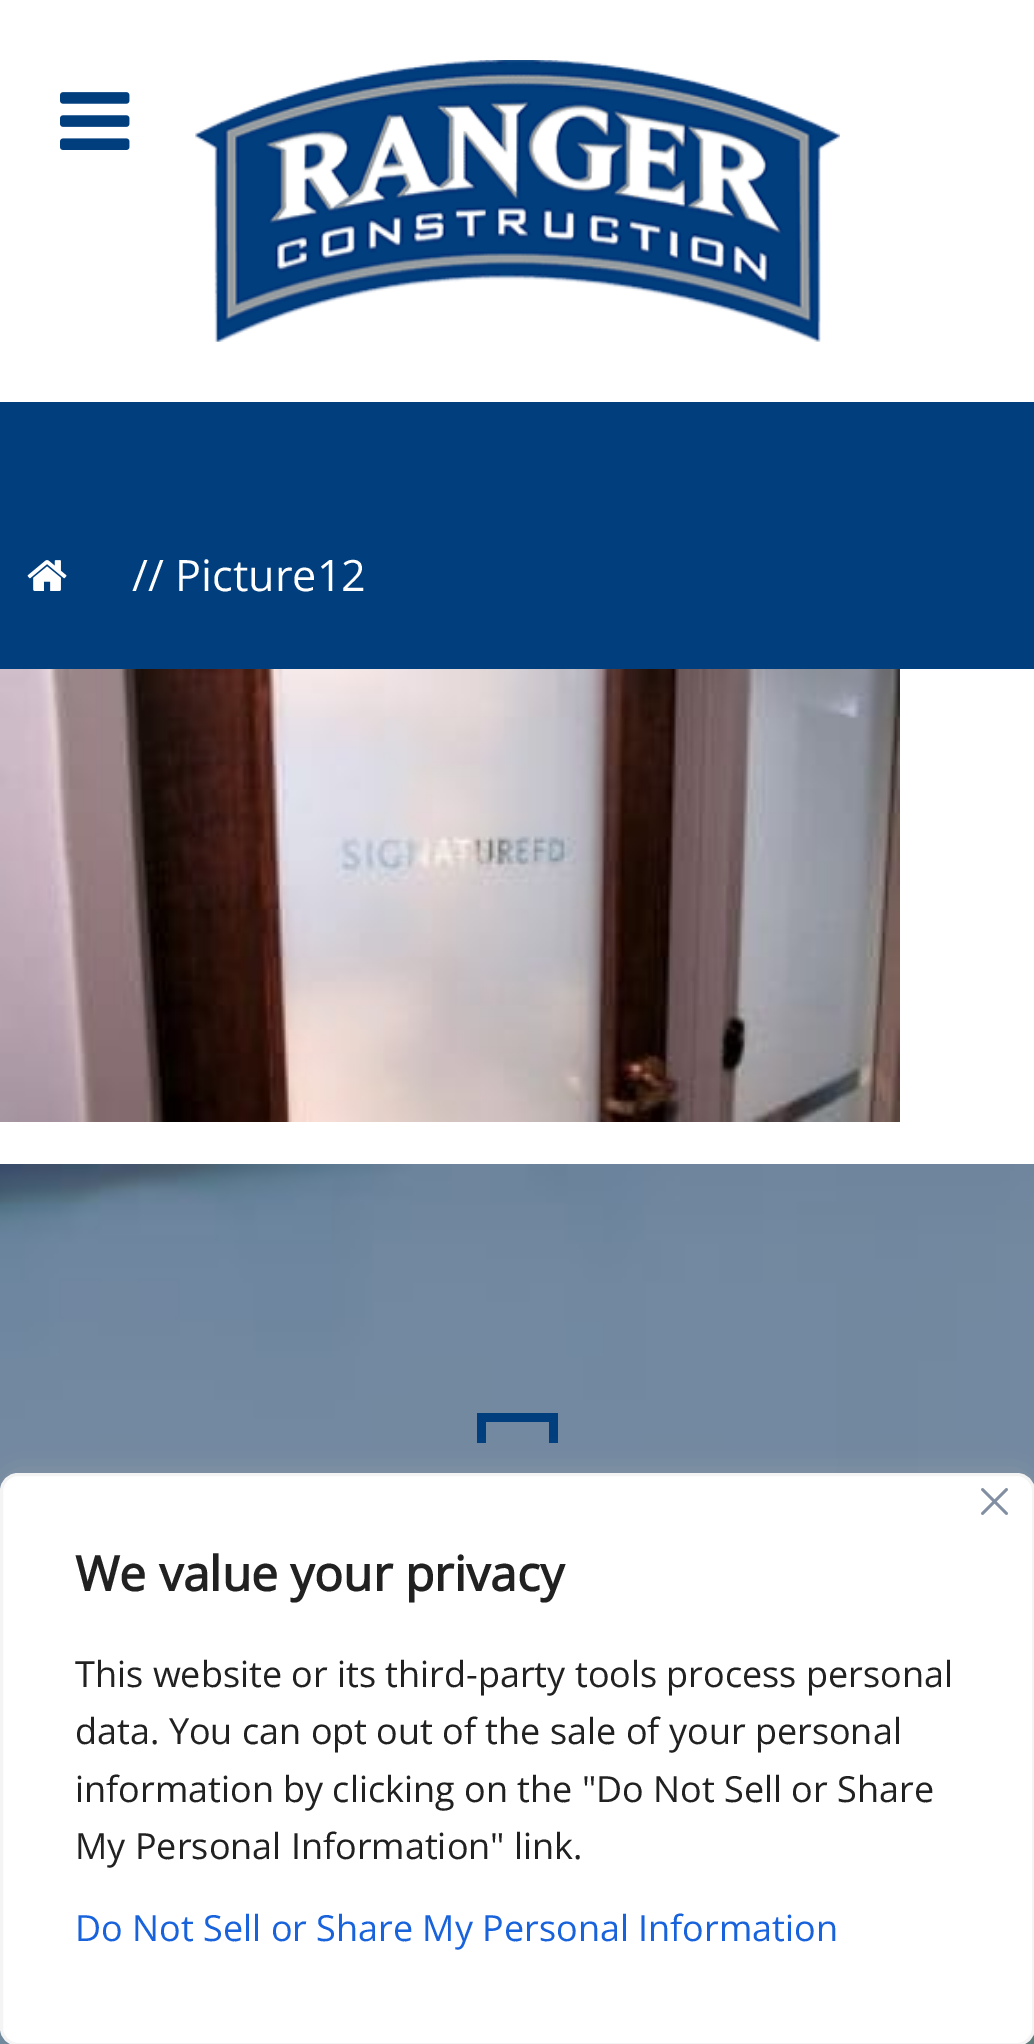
%!PS
<< /PageSize [1034 2044] /PageUsesTransparency true >> setpagedevice
/fl/fill load def
/st/stroke load def
/gs/gsave load def
/gr/grestore load def
/lw/setlinewidth load def
/co { dup -16 bitshift 255 div exch dup -8 bitshift 255 and 255 div exch 255 and 255 div setrgbcolor } def
/fn { [ exch dup neg 0 0 3 -1 roll 0 0 ] selectfont } def
/tx { co fn moveto show } def
/bx { co rectfill } def
/al { dup .setfillconstantalpha .setstrokeconstantalpha } def
/rr { 5 dict begin { /r /h /w /y /x } { exch def } forall
  x r add y moveto x w add y 2 copy h add r arct x w add y h add x 1 index r arct
  x y h add x y r arct x y 2 copy exch w add exch r arct closepath end } def
/sh { 12 dict begin { /a /b /q /h /w /y /x } { exch def } forall gsave /was 0 def
  9 -2 -9 { dup b mul 4 div /e exch def 1 sub .425 mul 2.718 exch exp 1 add a .99 .min exch div /now exch def
    1 1 now sub 1 was sub div sub al /was now def
    w h .min e 2 mul add 0 gt { x e sub y e sub w e 2 mul add h e 2 mul add
      q e add b .6 mul add w h .min 2 div e add .min 0 .max rr fill } if } for grestore end } def
/im { 5 dict begin { /h /w /y /x /name } { exch def } forall
  gsave x y translate w h scale
  w h 8 [w 0 0 h 0 0] name (r) file false 3 colorimage grestore end } def
0 .pushpdf14devicefilter
0 2044 translate 1 -1 scale
4 setmiterlimit
0 0 1034 2044 16#FFFFFF bx
(media/1.raw) 60 92 70 58 im
(media/2.raw) 195 60 645 282 im
0 402 1034 267 16#003E7E bx
(media/3.raw) 27 560 40 31 im
(media/4.raw) 0 669 900 453 im
(media/5.raw) 0 1164 1034 880 im
486 1413 63 9 16#003E7E bx
549 1413 9 30 16#003E7E bx
477 1413 9 30 16#003E7E bx
16#ACABAB co
0 1470 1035 573 18 15 .3 sh
16#FFFFFF co
1.5 1474.5 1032 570 16.5 rr gs fl gr
16#F4F4F4 co
3 lw
st
(media/6.raw) 981 1488 27 27 im
(// Picture12) 132 591 /OpenSans-Regular 43.25 16#FEFEFE tx
(We value your privacy) 75 1591 /OpenSans-Bold 48 16#212121 tx
(This website or its third-party tools process personal) 75 1687 /OpenSans-Regular 36 16#212121 tx
(data. You can opt out of the sale of your personal) 75 1744 /OpenSans-Regular 36 16#212121 tx
(information by clicking on the "Do Not Sell or Share) 75 1802 /OpenSans-Regular 36 16#212121 tx
(My Personal Information" link.) 75 1859 /OpenSans-Regular 36 16#212121 tx
(Do Not Sell or Share My Personal Information) 75 1941 /OpenSans-Regular 36 16#1863DC tx
.poppdf14devicefilter showpage
